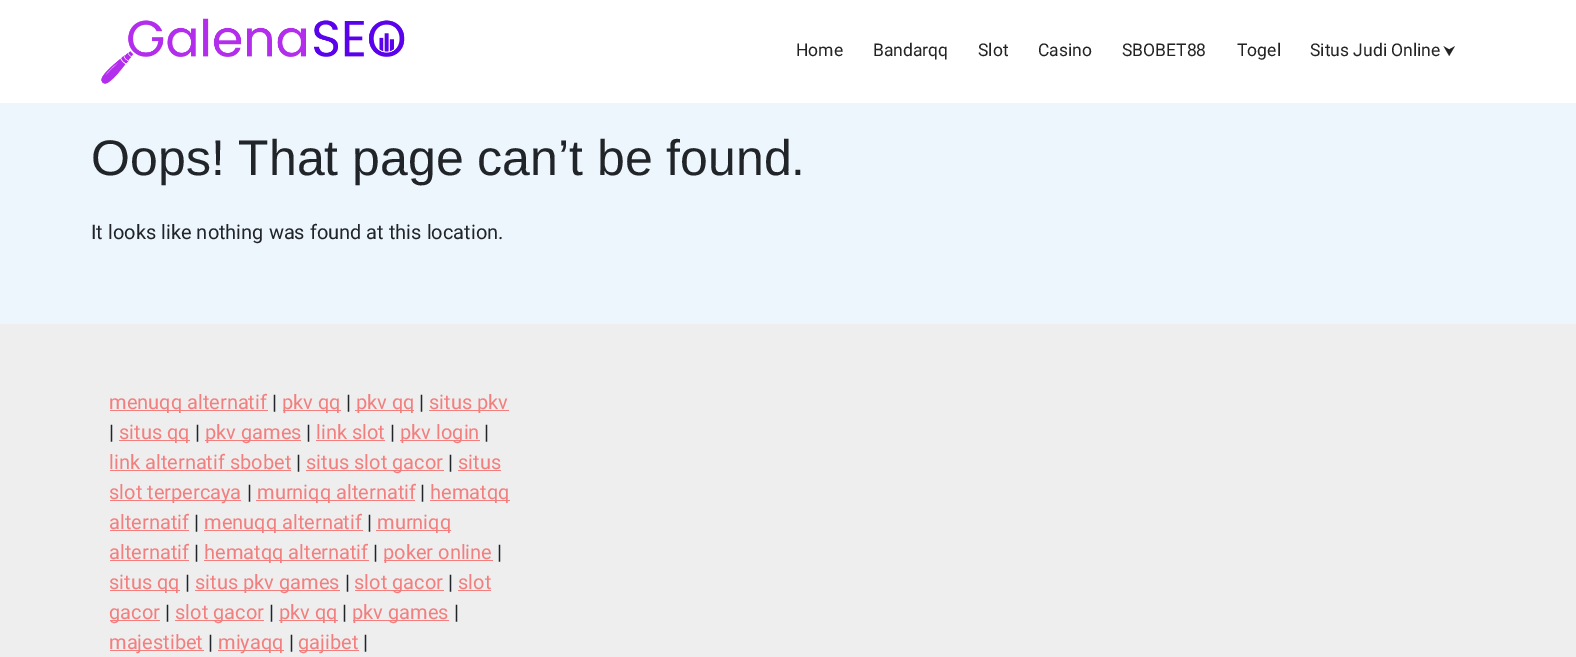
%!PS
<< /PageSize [1576 657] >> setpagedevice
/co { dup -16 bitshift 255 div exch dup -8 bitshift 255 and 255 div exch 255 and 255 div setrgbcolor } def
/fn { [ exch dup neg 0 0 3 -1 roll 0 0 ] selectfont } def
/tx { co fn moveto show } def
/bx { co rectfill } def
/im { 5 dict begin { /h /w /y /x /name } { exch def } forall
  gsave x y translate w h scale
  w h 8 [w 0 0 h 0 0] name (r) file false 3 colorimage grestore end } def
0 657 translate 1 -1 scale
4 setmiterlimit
0 0 1576 657 16#EDF6FC bx
0 0 1576 103 16#FFFFFF bx
(media/1.raw) 101 18 304 66 im
0 324 1576 333 16#EEEEEE bx
110 410 158 1 16#F37E7E bx
283 410 58 1 16#F37E7E bx
355 410 59 1 16#F37E7E bx
429 410 80 1 16#F37E7E bx
119 440 71 1 16#F37E7E bx
205 440 96 1 16#F37E7E bx
316 440 69 1 16#F37E7E bx
400 440 80 1 16#F37E7E bx
110 470 181 1 16#F37E7E bx
306 470 138 1 16#F37E7E bx
458 470 43 1 16#F37E7E bx
110 500 131 1 16#F37E7E bx
256 500 159 1 16#F37E7E bx
430 500 80 1 16#F37E7E bx
110 530 79 1 16#F37E7E bx
204 530 159 1 16#F37E7E bx
376 530 75 1 16#F37E7E bx
110 560 79 1 16#F37E7E bx
204 560 165 1 16#F37E7E bx
384 560 109 1 16#F37E7E bx
110 590 70 1 16#F37E7E bx
195 590 145 1 16#F37E7E bx
355 590 89 1 16#F37E7E bx
458 590 33 1 16#F37E7E bx
110 620 50 1 16#F37E7E bx
175 620 89 1 16#F37E7E bx
279 620 59 1 16#F37E7E bx
353 620 96 1 16#F37E7E bx
110 650 94 1 16#F37E7E bx
218 650 66 1 16#F37E7E bx
299 650 60 1 16#F37E7E bx
(Home) 796 56 /Roboto-Regular 17.5 16#232323 tx
(Bandarqq) 873 56 /Roboto-Regular 17.5 16#232323 tx
(Slot) 978 56 /Roboto-Regular 17.5 16#232323 tx
(Casino) 1038 56 /Roboto-Regular 17.5 16#232323 tx
(SBOBET88) 1122 56 /Roboto-Regular 17.5 16#232323 tx
(Togel) 1237 56 /Roboto-Regular 17.5 16#232323 tx
(Situs Judi Online) 1310 56 /Roboto-Regular 17.5 16#232323 tx
(⮟) 1443 56 /FreeSans-Regular 15 16#232323 tx
(Oops! That page can’t be found.) 91 175 /LiberationSans-Regular 50 16#212529 tx
(It looks like nothing was found at this location.) 91 239 /Roboto-Regular 20 16#212529 tx
(menuqq alternatif) 109 409 /Roboto-Regular 20 16#F37E7E tx
(|) 272 409 /Roboto-Regular 20 16#212529 tx
(pkv qq) 282 409 /Roboto-Regular 20 16#F37E7E tx
(|) 346 409 /Roboto-Regular 20 16#212529 tx
(pkv qq) 356 409 /Roboto-Regular 20 16#F37E7E tx
(|) 419 409 /Roboto-Regular 20 16#212529 tx
(situs pkv) 429 409 /Roboto-Regular 20 16#F37E7E tx
(|) 109 439 /Roboto-Regular 20 16#212529 tx
(situs qq) 119 439 /Roboto-Regular 20 16#F37E7E tx
(|) 195 439 /Roboto-Regular 20 16#212529 tx
(pkv games) 205 439 /Roboto-Regular 20 16#F37E7E tx
(|) 306 439 /Roboto-Regular 20 16#212529 tx
(link slot) 316 439 /Roboto-Regular 20 16#F37E7E tx
(|) 390 439 /Roboto-Regular 20 16#212529 tx
(pkv login) 400 439 /Roboto-Regular 20 16#F37E7E tx
(|) 484 439 /Roboto-Regular 20 16#212529 tx
(link alternatif sbobet) 109 469 /Roboto-Regular 20 16#F37E7E tx
(|) 296 469 /Roboto-Regular 20 16#212529 tx
(situs slot gacor) 306 469 /Roboto-Regular 20 16#F37E7E tx
(|) 448 469 /Roboto-Regular 20 16#212529 tx
(situs) 458 469 /Roboto-Regular 20 16#F37E7E tx
(slot terpercaya) 109 499 /Roboto-Regular 20 16#F37E7E tx
(|) 247 499 /Roboto-Regular 20 16#212529 tx
(murniqq alternatif) 257 499 /Roboto-Regular 20 16#F37E7E tx
(|) 420 499 /Roboto-Regular 20 16#212529 tx
(hematqq) 430 499 /Roboto-Regular 20 16#F37E7E tx
(alternatif) 109 529 /Roboto-Regular 20 16#F37E7E tx
(|) 194 529 /Roboto-Regular 20 16#212529 tx
(menuqq alternatif) 204 529 /Roboto-Regular 20 16#F37E7E tx
(|) 367 529 /Roboto-Regular 20 16#212529 tx
(murniqq) 377 529 /Roboto-Regular 20 16#F37E7E tx
(alternatif) 109 559 /Roboto-Regular 20 16#F37E7E tx
(|) 194 559 /Roboto-Regular 20 16#212529 tx
(hematqq alternatif) 204 559 /Roboto-Regular 20 16#F37E7E tx
(|) 373 559 /Roboto-Regular 20 16#212529 tx
(poker online) 383 559 /Roboto-Regular 20 16#F37E7E tx
(|) 497 559 /Roboto-Regular 20 16#212529 tx
(situs qq) 109 589 /Roboto-Regular 20 16#F37E7E tx
(|) 185 589 /Roboto-Regular 20 16#212529 tx
(situs pkv games) 195 589 /Roboto-Regular 20 16#F37E7E tx
(|) 345 589 /Roboto-Regular 20 16#212529 tx
(slot gacor) 354 589 /Roboto-Regular 20 16#F37E7E tx
(|) 448 589 /Roboto-Regular 20 16#212529 tx
(slot) 458 589 /Roboto-Regular 20 16#F37E7E tx
(gacor) 109 619 /Roboto-Regular 20 16#F37E7E tx
(|) 165 619 /Roboto-Regular 20 16#212529 tx
(slot gacor) 175 619 /Roboto-Regular 20 16#F37E7E tx
(|) 269 619 /Roboto-Regular 20 16#212529 tx
(pkv qq) 279 619 /Roboto-Regular 20 16#F37E7E tx
(|) 342 619 /Roboto-Regular 20 16#212529 tx
(pkv games) 352 619 /Roboto-Regular 20 16#F37E7E tx
(|) 454 619 /Roboto-Regular 20 16#212529 tx
(majestibet) 109 649 /Roboto-Regular 20 16#F37E7E tx
(|) 208 649 /Roboto-Regular 20 16#212529 tx
(miyaqq) 218 649 /Roboto-Regular 20 16#F37E7E tx
(|) 289 649 /Roboto-Regular 20 16#212529 tx
(gajibet) 298 649 /Roboto-Regular 20 16#F37E7E tx
(|) 363 649 /Roboto-Regular 20 16#212529 tx
showpage
